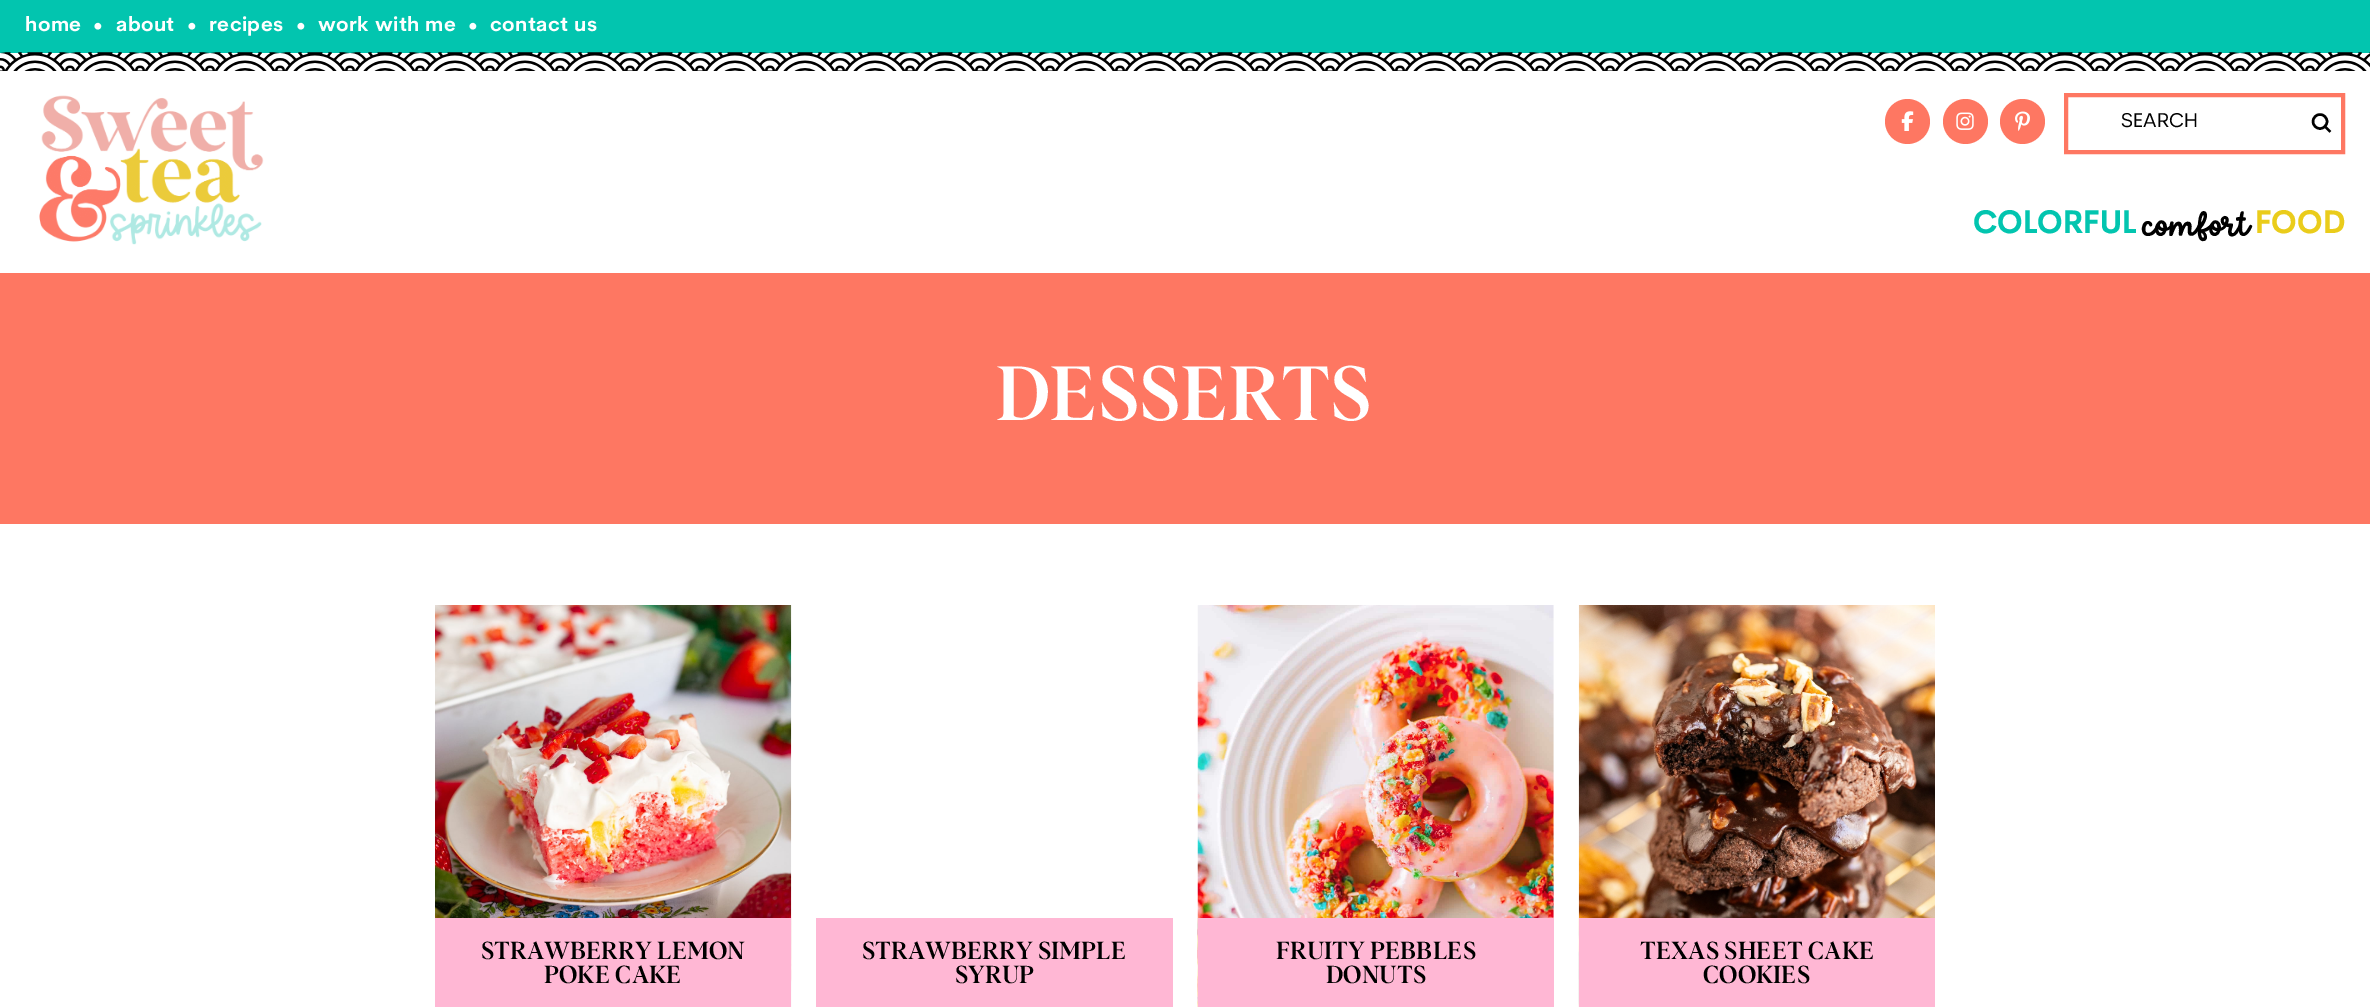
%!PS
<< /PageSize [2370 1007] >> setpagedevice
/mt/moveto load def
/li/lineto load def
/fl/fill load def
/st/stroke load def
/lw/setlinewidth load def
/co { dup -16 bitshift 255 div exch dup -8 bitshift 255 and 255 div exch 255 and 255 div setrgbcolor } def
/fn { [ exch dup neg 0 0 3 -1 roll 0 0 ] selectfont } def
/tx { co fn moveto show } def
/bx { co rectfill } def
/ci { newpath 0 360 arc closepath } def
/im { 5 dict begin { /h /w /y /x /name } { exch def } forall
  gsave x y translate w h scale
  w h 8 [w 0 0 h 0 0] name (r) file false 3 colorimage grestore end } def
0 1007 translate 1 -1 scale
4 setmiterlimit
0 0 2370 1007 16#FFFFFF bx
0 0 2370 53 16#02C5AF bx
(media/1.raw) 0 52 2370 1 im
(media/2.raw) 0 52 2370 19 im
(media/3.raw) 39 95 225 150 im
16#FE7762 co
1907.5 121.5 22.5 ci fl
(media/4.raw) 1901 111 13 20 im
1965.5 121.5 22.5 ci fl
(media/5.raw) 1956 112 18 18 im
2022.5 121.5 22.5 ci fl
(media/6.raw) 2015 111 15 20 im
4 lw
2066 95 277 57 rectstroke
16#000000 co
2.4 lw
2320 121.5 7 ci st
2 setlinecap
2329.5 131 mt 2325 126.5 li st
0 273 2370 251 16#FE7762 bx
(media/7.raw) 435 605 357 402 im
435 918 356 89 16#FFB7D4 bx
816 918 357 89 16#FFB7D4 bx
(media/8.raw) 1197 605 357 402 im
1198 918 356 89 16#FFB7D4 bx
(media/9.raw) 1578 605 357 402 im
1579 918 356 89 16#FFB7D4 bx
/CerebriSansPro-Bold 20 fn
16#FFFFFF co
25 31 mt .4 0 (home) ashow
(•) 93 31 /CerebriSansPro-Regular 20 16#FFFFFF tx
/CerebriSansPro-Bold 20 fn
116 31 mt .4 0 (about) ashow
(•) 187 31 /CerebriSansPro-Regular 20 16#FFFFFF tx
/CerebriSansPro-Bold 20 fn
209 31 mt .4 0 (recipes) ashow
(•) 296 31 /CerebriSansPro-Regular 20 16#FFFFFF tx
/CerebriSansPro-Bold 20 fn
318 31 mt .4 0 (work with me) ashow
(•) 468 31 /CerebriSansPro-Regular 20 16#FFFFFF tx
/CerebriSansPro-Bold 20 fn
490 31 mt .4 0 (contact us) ashow
(SEARCH) 2121 127 /CerebriSansPro-Regular 20 16#000000 tx
(COLORFUL) 1973 233 /CerebriSansPro-Bold 32 16#02C5AF tx
(comfort) 2143 236 /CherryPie-Regular 36 16#000000 tx
(FOOD) 2255 233 /CerebriSansPro-Bold 32 16#EACC1B tx
(DESSERTS) 996 420 /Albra-Medium 75 16#FFFFFF tx
(STRAWBERRY LEMON) 481 959 /Albra-Medium 24 16#000000 tx
(POKE CAKE) 544 983 /Albra-Medium 24 16#000000 tx
(STRAWBERRY SIMPLE) 862 959 /Albra-Medium 24 16#000000 tx
(SYRUP) 955 983 /Albra-Medium 24 16#000000 tx
(FRUITY PEBBLES) 1276 959 /Albra-Medium 24 16#000000 tx
(DONUTS) 1326 983 /Albra-Medium 24 16#000000 tx
(TEXAS SHEET CAKE) 1640 959 /Albra-Medium 24 16#000000 tx
(COOKIES) 1703 983 /Albra-Medium 24 16#000000 tx
showpage
